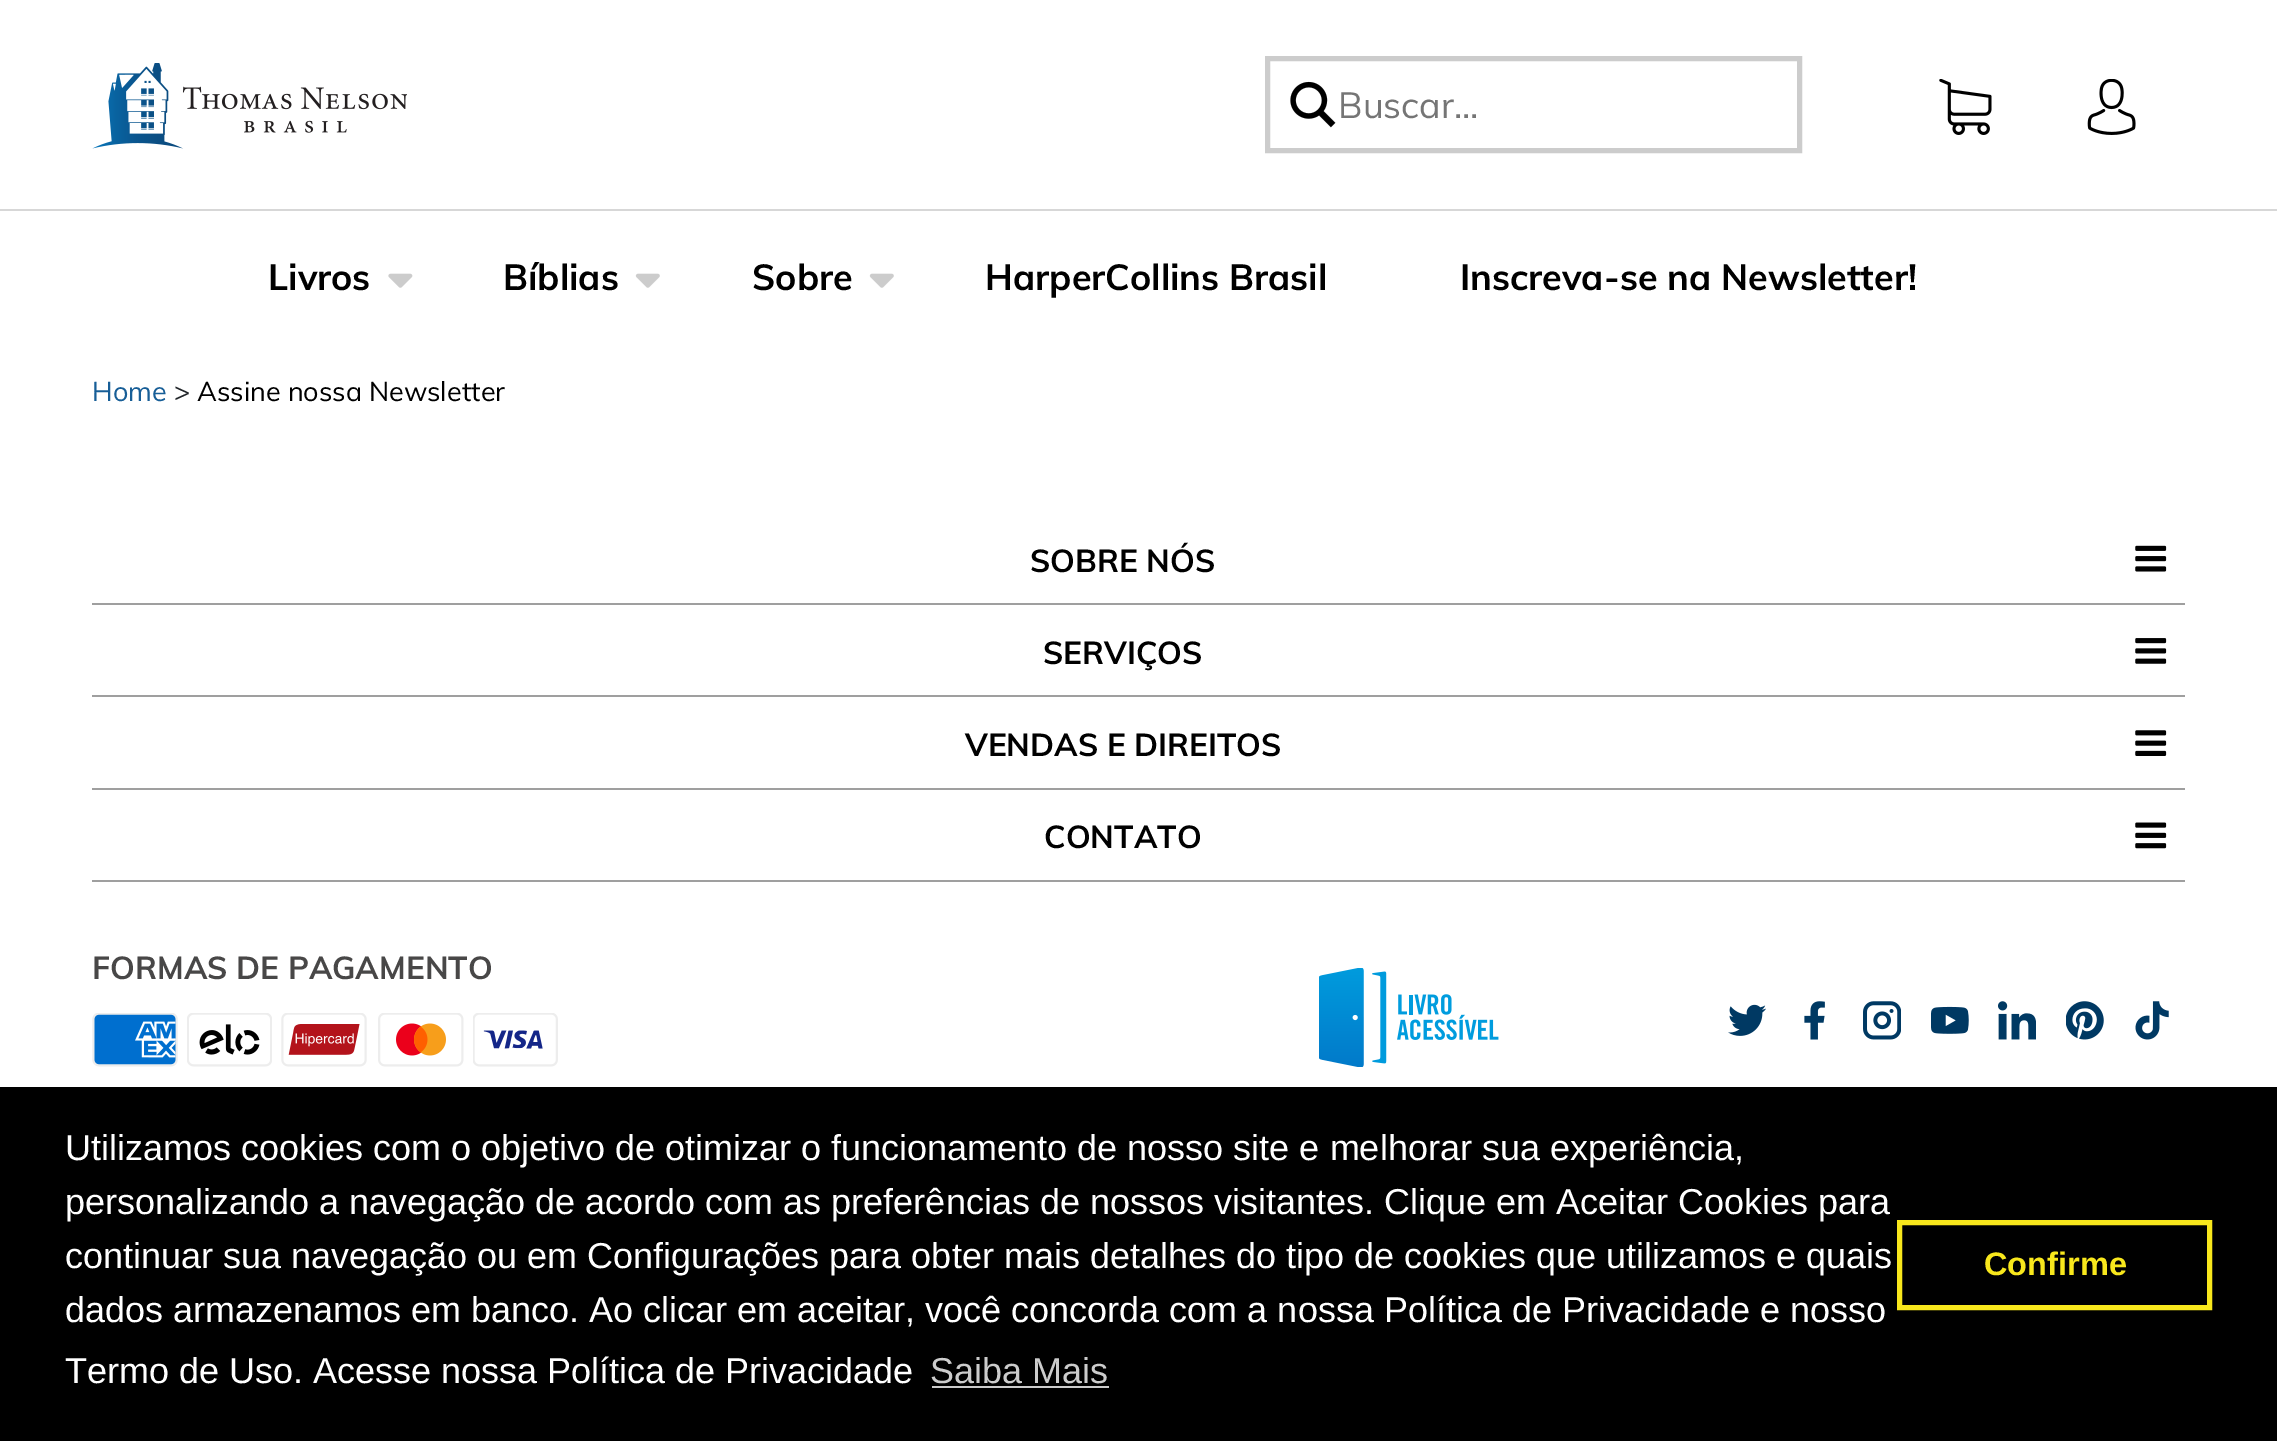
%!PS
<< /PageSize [2277 1441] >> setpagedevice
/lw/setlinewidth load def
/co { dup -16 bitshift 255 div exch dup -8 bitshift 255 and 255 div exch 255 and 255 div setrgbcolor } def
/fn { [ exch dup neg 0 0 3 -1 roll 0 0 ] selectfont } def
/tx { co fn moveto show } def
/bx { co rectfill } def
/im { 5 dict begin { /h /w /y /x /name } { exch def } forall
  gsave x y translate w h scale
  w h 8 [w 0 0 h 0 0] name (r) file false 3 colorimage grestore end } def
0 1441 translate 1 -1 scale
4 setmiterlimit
0 0 2277 1441 16#FFFFFF bx
0 209 2277 2 16#D7D7D7 bx
(media/1.raw) 92 63 315 86 im
16#CCCCCC co
5 lw
1267.5 58.5 532 92 rectstroke
(media/2.raw) 1290 81 46 47 im
(media/3.raw) 1939 79 53 56 im
(media/4.raw) 2087 79 49 56 im
(media/5.raw) 388 273 25 15 im
(media/6.raw) 635 273 25 15 im
(media/6.raw) 869 273 25 15 im
92 603 2093 2 16#9F9F9F bx
(media/7.raw) 2135 545 32 27 im
92 695 2093 2 16#9F9F9F bx
(media/8.raw) 2135 638 32 26 im
92 788 2093 2 16#9F9F9F bx
(media/9.raw) 2135 730 32 26 im
92 880 2093 2 16#9F9F9F bx
(media/10.raw) 2135 822 32 27 im
(media/11.raw) 92 1013 86 54 im
(media/12.raw) 187 1013 85 54 im
(media/13.raw) 281 1013 86 54 im
(media/14.raw) 378 1013 86 54 im
(media/15.raw) 473 1013 85 54 im
(media/16.raw) 1319 968 180 99 im
(media/17.raw) 1728 1004 38 32 im
(media/18.raw) 1804 1001 21 39 im
(media/19.raw) 1863 1001 38 39 im
(media/20.raw) 1931 1006 38 28 im
(media/21.raw) 1998 1001 38 39 im
(media/22.raw) 2066 1001 38 39 im
(media/23.raw) 2135 1001 34 39 im
0 1087 2277 354 16#000000 bx
932 1386 177 2 16#CCCCCC bx
16#F8E71C co
1899.5 1222.5 310 85 rectstroke
(Buscar...) 1338 118 /Muli-Regular 36 16#757575 tx
(Livros) 268 290 /Muli-Bold 36 16#000000 tx
(Bíblias) 503 290 /Muli-Bold 36 16#000000 tx
(Sobre) 752 290 /Muli-Bold 36 16#000000 tx
(HarperCollins Brasil) 985 290 /Muli-Bold 36 16#000000 tx
(Inscreva-se na Newsletter!) 1460 290 /Muli-Bold 36 16#000000 tx
(Home) 92 401 /Muli-Regular 27 16#175E97 tx
(>) 174 401 /Muli-Regular 27 16#212529 tx
(Assine nossa Newsletter) 197 401 /Muli-Regular 27 16#000000 tx
(SOBRE NÓS) 1030 572 /Muli-Bold 31.5 16#000000 tx
(SERVIÇOS) 1043 664 /Muli-Bold 31.5 16#000000 tx
(VENDAS E DIREITOS) 965 756 /Muli-Bold 31.5 16#000000 tx
(CONTATO) 1044 848 /Muli-Bold 31.5 16#000000 tx
(FORMAS DE PAGAMENTO) 92 979 /Muli-Bold 31.5 16#484747 tx
(Utilizamos cookies com o objetivo de otimizar o funcionamento de nosso site e melhorar sua experiência,) 65 1160 /LiberationSans-Regular 36 16#FFFFFF tx
(personalizando a navegação de acordo com as preferências de nossos visitantes. Clique em Aceitar Cookies para) 65 1214 /LiberationSans-Regular 36 16#FFFFFF tx
(continuar sua navegação ou em Configurações para obter mais detalhes do tipo de cookies que utilizamos e quais) 65 1268 /LiberationSans-Regular 36 16#FFFFFF tx
(dados armazenamos em banco. Ao clicar em aceitar, você concorda com a nossa Política de Privacidade e nosso) 65 1322 /LiberationSans-Regular 36 16#FFFFFF tx
(Termo de Uso. Acesse nossa Política de Privacidade) 65 1383 /LiberationSans-Regular 36 16#FFFFFF tx
(Saiba Mais) 930 1383 /LiberationSans-Regular 36 16#CCCCCC tx
(Confirme) 1984 1275 /LiberationSans-Bold 32.5 16#F8E71C tx
showpage
